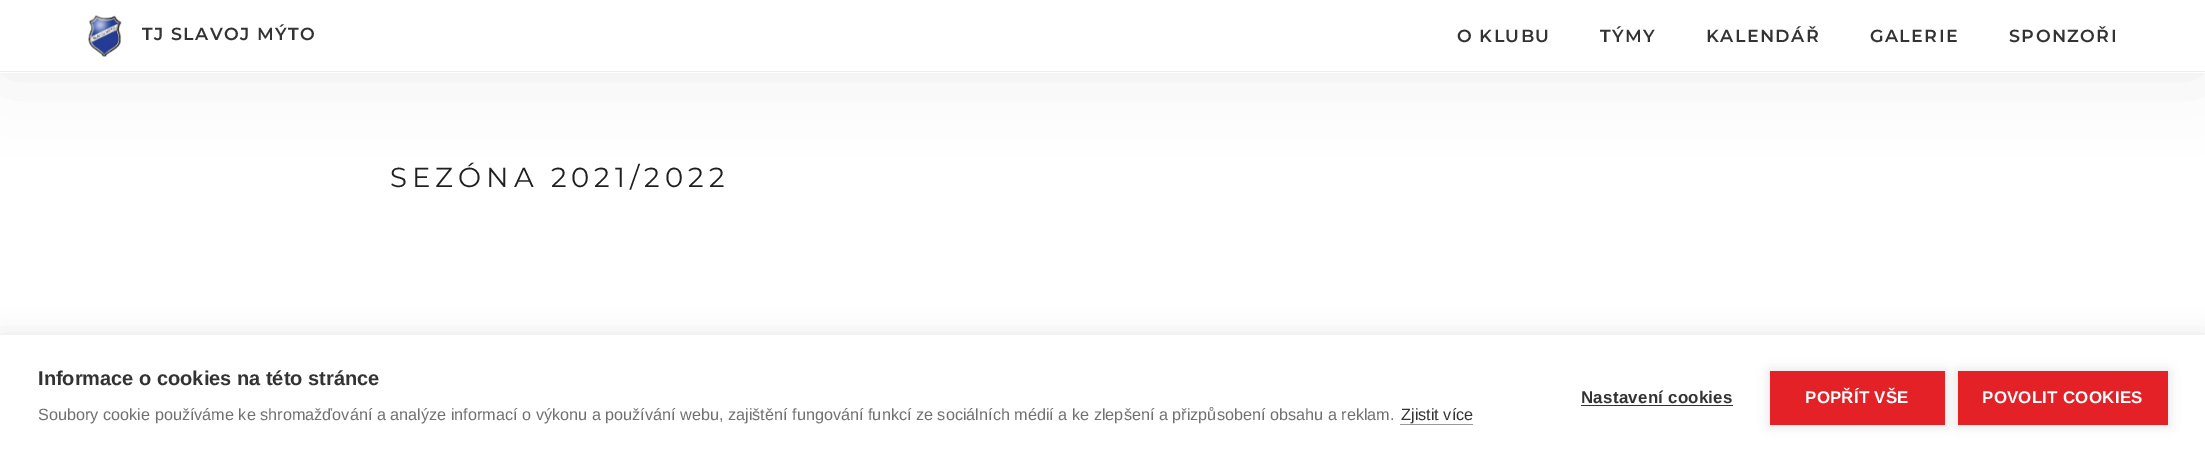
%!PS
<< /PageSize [2205 460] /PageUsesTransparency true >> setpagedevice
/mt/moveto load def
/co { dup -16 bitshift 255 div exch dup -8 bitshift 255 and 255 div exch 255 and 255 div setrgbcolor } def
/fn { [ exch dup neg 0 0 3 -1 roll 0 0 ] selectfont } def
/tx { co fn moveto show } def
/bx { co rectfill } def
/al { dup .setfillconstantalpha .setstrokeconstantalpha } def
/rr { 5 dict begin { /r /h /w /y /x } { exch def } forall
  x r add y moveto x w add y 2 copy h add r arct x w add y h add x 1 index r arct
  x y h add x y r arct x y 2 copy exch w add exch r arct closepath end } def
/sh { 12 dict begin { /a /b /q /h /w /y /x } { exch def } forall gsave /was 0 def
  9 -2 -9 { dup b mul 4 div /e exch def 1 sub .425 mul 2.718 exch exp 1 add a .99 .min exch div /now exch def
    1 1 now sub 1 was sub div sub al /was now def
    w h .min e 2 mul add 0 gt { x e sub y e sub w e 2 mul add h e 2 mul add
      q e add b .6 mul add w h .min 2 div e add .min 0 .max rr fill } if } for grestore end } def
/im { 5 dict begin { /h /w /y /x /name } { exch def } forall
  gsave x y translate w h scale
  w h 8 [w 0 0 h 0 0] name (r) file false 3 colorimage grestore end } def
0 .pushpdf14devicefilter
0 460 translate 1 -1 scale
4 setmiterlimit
0 0 2205 460 16#FFFFFF bx
16#000000 co
0 0 2205 73 0 37.5 .07 sh
0 0 2205 73 16#FFFFFF bx
0 71 2205 1 16#EEEEEE bx
(media/1.raw) 88 15 34 42 im
16#000000 co
0 335 2205 125 0 12.5 .1 sh
0 335 2205 125 16#FFFFFF bx
1400 424 73 1 16#999999 bx
1581 405 152 1 16#333333 bx
16#000000 co
1770 371 175 54 0 6 .12 sh
1770 371 175 54 16#E42127 bx
16#000000 co
1958 371 210 54 0 6 .12 sh
1958 371 210 54 16#E42127 bx
/Montserrat-SemiBold 17.5 fn
16#333333 co
142 40 mt 1.4 0 (TJ SLAVOJ MÝTO) ashow
1457 42 mt 1.4 0 (O KLUBU) ashow
1600 42 mt 1.4 0 (TÝMY) ashow
1706 42 mt 1.4 0 (KALENDÁŘ) ashow
1870 42 mt 1.4 0 (GALERIE) ashow
2009 42 mt 1.4 0 (SPONZOŘI) ashow
/Montserrat-Regular 27.5 fn
16#202020 co
390 187 mt 5 0 (SEZÓNA 2021/2022) ashow
(Informace o cookies na této stránce) 38 385 /LiberationSans-Bold 20 16#333333 tx
(Soubory cookie používáme ke shromažďování a analýze informací o výkonu a používání webu, zajištění fungování funkcí ze sociálních médií a ke zlepšení a přizpůsobení obsahu a reklam.) 38 420 /LiberationSans-Regular 16.25 16#707070 tx
(Zjistit více) 1401 420 /LiberationSans-Regular 16.25 16#333333 tx
/LiberationSans-Bold 16.9 fn
1581 403 mt .25 0 (Nastavení cookies) ashow
16#FFFFFF co
1805 403 mt .25 0 (POPŘÍT VŠE) ashow
1982 403 mt .25 0 (POVOLIT COOKIES) ashow
.poppdf14devicefilter showpage
